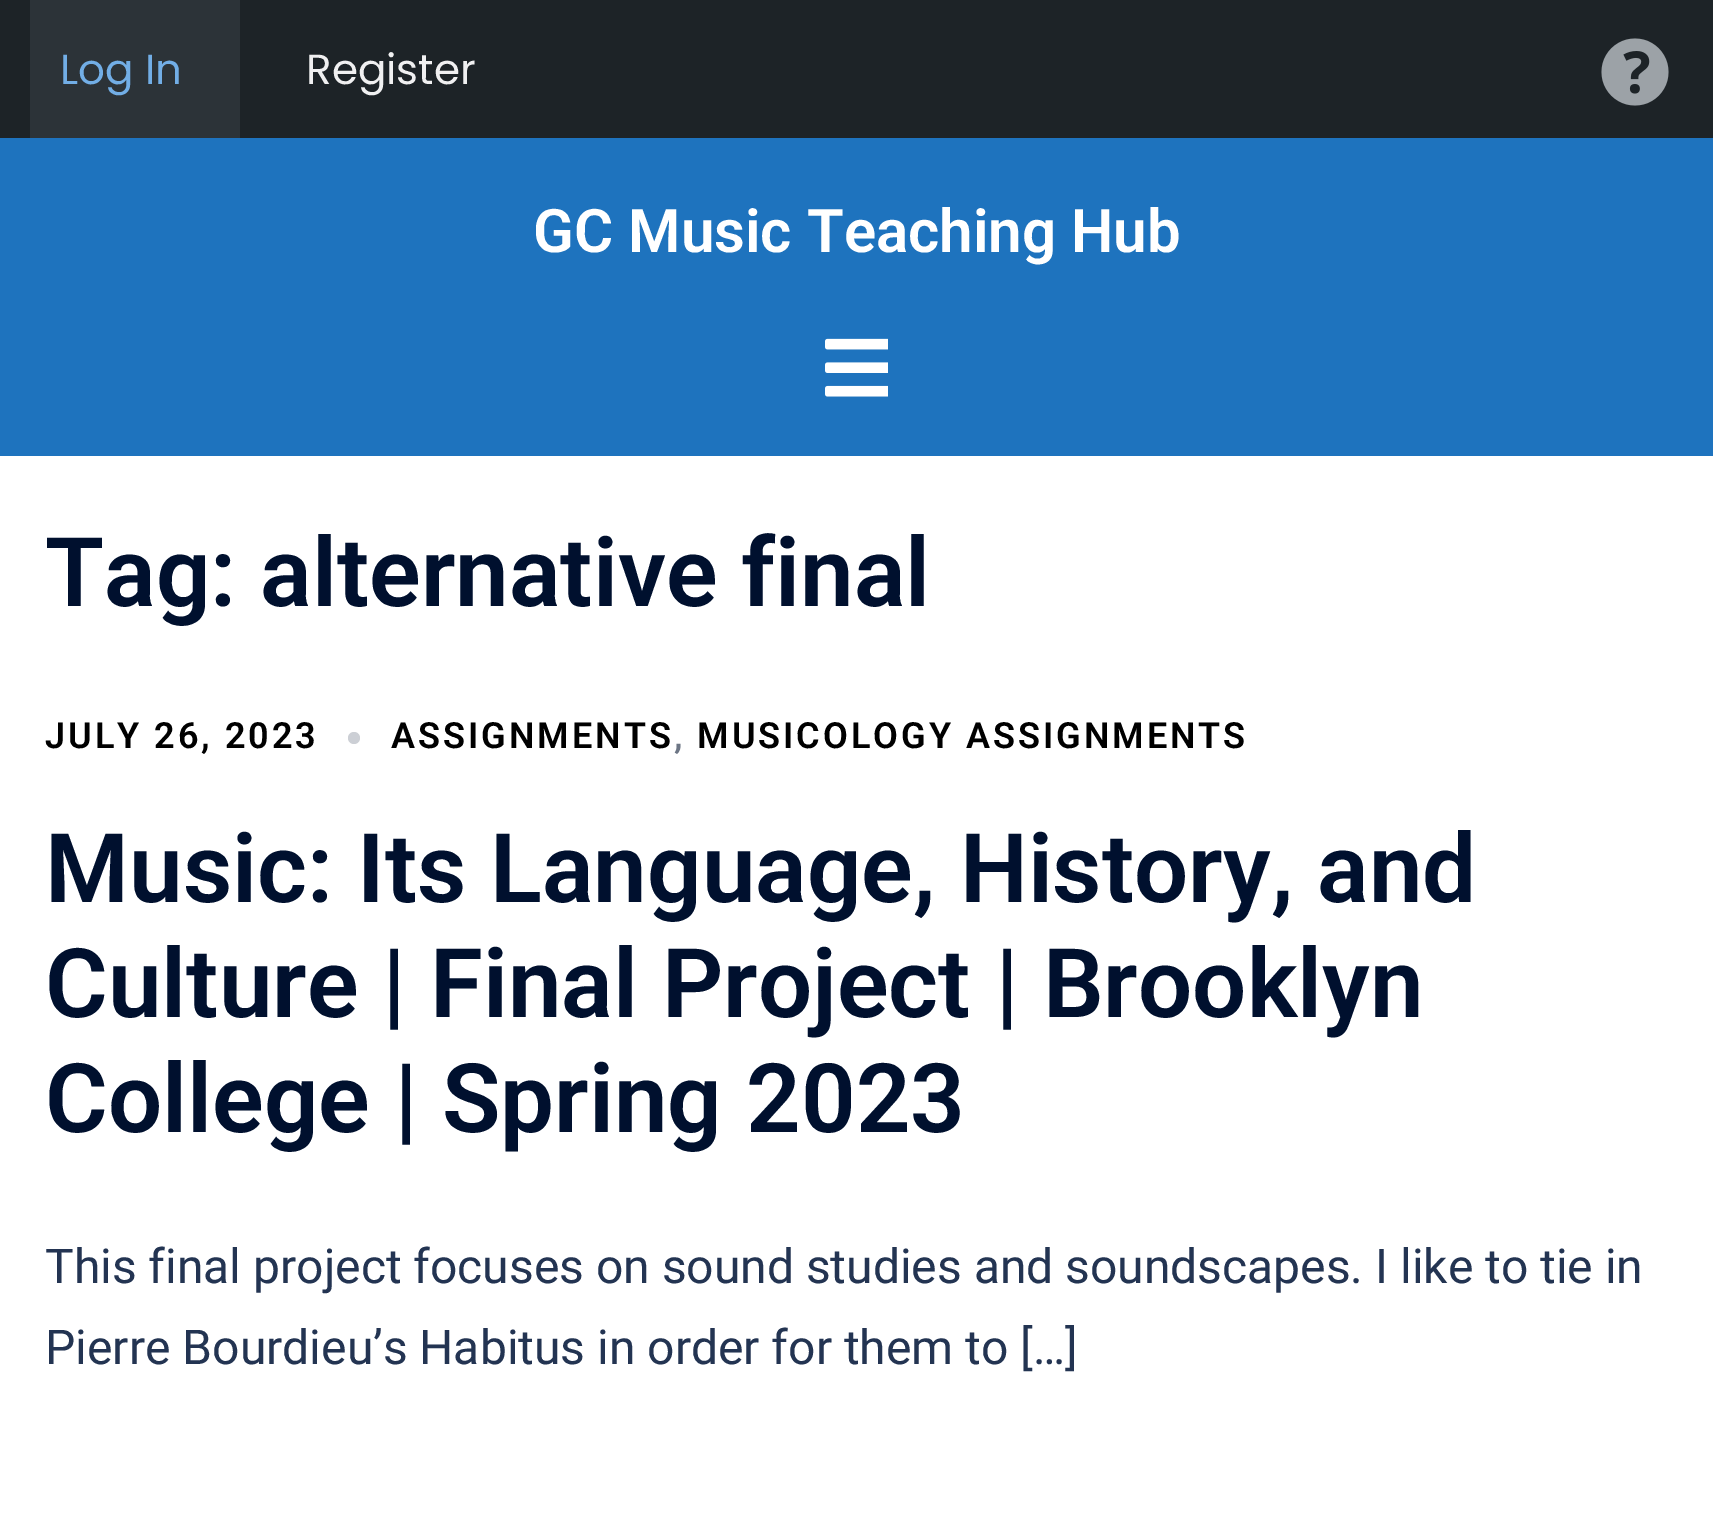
%!PS
<< /PageSize [1713 1521] >> setpagedevice
/mt/moveto load def
/fl/fill load def
/co { dup -16 bitshift 255 div exch dup -8 bitshift 255 and 255 div exch 255 and 255 div setrgbcolor } def
/fn { [ exch dup neg 0 0 3 -1 roll 0 0 ] selectfont } def
/tx { co fn moveto show } def
/bx { co rectfill } def
/ci { newpath 0 360 arc closepath } def
/im { 5 dict begin { /h /w /y /x /name } { exch def } forall
  gsave x y translate w h scale
  w h 8 [w 0 0 h 0 0] name (r) file false 3 colorimage grestore end } def
0 1521 translate 1 -1 scale
4 setmiterlimit
0 0 1713 1521 16#FFFFFF bx
0 0 1713 138 16#1D2327 bx
30 0 210 138 16#2C3338 bx
(media/1.raw) 1601 38 68 68 im
0 138 1713 318 16#1E73BE bx
(media/2.raw) 825 338 63 59 im
16#CCCFD5 co
354 738 6 ci fl
(Log In) 60 84 /Poppins-Regular 42 16#72AEE6 tx
(Register) 306 84 /Poppins-Regular 42 16#F0F0F1 tx
(GC Music Teaching Hub) 533 252 /Roboto-SemiBold 60 16#FFFFFF tx
(Tag: alternative final) 45 606 /Roboto-SemiBold 96 16#00102E tx
/Roboto-SemiBold 36 fn
16#000000 co
45 748 mt 3 0 (JULY 26, 2023) ashow
391 748 mt 3 0 (ASSIGNMENTS) ashow
16#6D7685 co
674 748 mt 3 0 (,) ashow
16#000000 co
697 748 mt 3 0 (MUSICOLOGY ASSIGNMENTS) ashow
(Music: Its Language, History, and) 45 902 /Roboto-SemiBold 96 16#00102E tx
(Culture | Final Project | Brooklyn) 45 1017 /Roboto-SemiBold 96 16#00102E tx
(College | Spring 2023) 45 1132 /Roboto-SemiBold 96 16#00102E tx
(This final project focuses on sound studies and soundscapes. I like to tie in) 45 1283 /Roboto-Regular 48 16#233452 tx
(Pierre Bourdieu’s Habitus in order for them to […]) 45 1364 /Roboto-Regular 48 16#233452 tx
showpage
